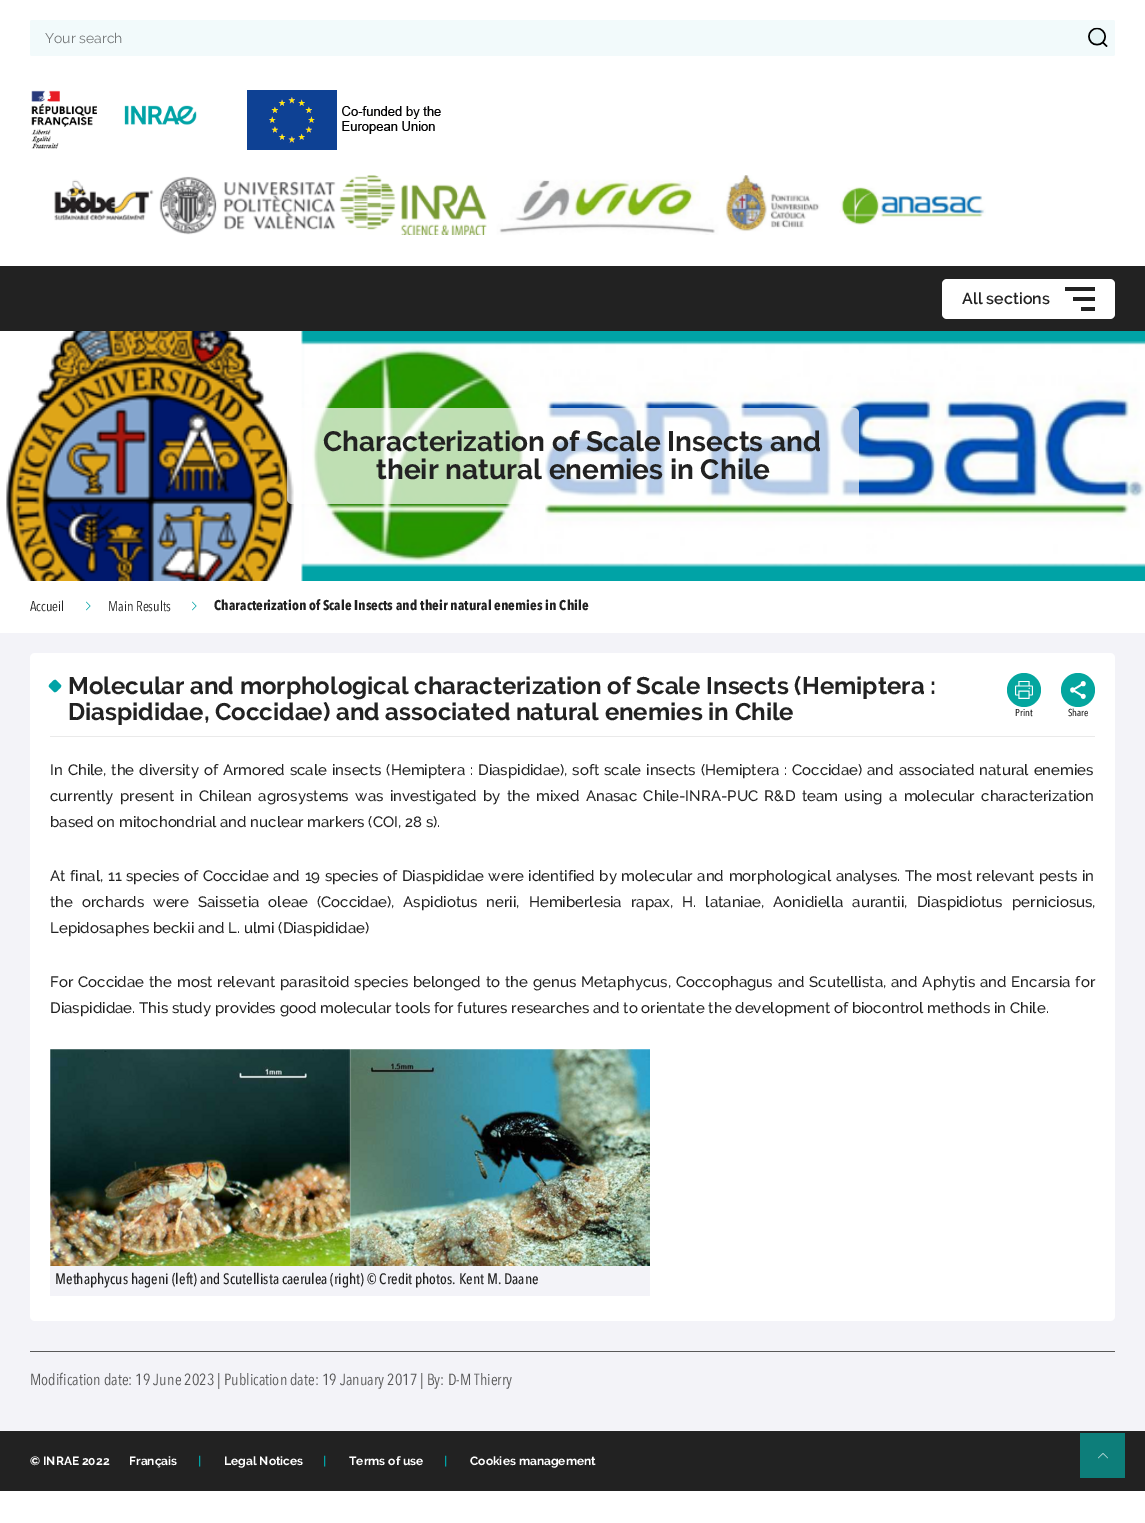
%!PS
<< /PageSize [1145 1523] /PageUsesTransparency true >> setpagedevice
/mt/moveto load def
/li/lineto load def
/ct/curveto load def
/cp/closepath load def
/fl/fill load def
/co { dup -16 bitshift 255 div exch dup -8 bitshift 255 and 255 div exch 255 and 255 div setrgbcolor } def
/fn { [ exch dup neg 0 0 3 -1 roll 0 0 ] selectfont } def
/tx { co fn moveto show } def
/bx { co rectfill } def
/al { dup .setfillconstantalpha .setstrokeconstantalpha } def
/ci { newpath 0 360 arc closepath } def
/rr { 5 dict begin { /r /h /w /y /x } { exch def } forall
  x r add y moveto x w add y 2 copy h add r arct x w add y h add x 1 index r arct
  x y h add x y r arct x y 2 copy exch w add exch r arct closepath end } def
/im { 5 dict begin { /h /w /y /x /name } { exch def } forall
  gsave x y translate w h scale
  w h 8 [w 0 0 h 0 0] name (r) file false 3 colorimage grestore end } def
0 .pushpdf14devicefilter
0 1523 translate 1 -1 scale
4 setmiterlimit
0 0 1145 1523 16#FFFFFF bx
16#F2FAFB co
30 20 1085 36 2 rr fl
(media/1.raw) 1088 27 20 20 im
(media/2.raw) 31 90 166 59 im
(media/3.raw) 247 90 194 60 im
(media/4.raw) 54 175 932 60 im
0 266 1145 65 16#222222 bx
16#FFFFFF co
942 279 173 40 5 rr fl
1065 287 30 4 16#222222 bx
1073 297 22 4 16#222222 bx
1081 307 14 4 16#222222 bx
301 331 844 250 16#00A3A6 bx
(media/5.raw) 0 331 1145 250 im
0.7 al
16#FFFFFF co
287 408 572 96 5 rr fl
1 al
(media/6.raw) 86 601 5 10 im
(media/6.raw) 192 601 5 10 im
0 633 1145 798 16#F3F3F8 bx
16#FFFFFF co
30 653 1085 668 5 rr fl
50 736 1045 1 16#EAEAEA bx
16#00A3A6 co
56.5 680.5 mt 61 685 li 62 687 59.5 688.5 58.5 689.5 ct 57.5 690.5 55.5 693.5 53.5 691.5 ct 49 687 li 48 685 50.5 683.5 51.5 682.5 ct 52.5 681.5 54.5 678.5 56.5 680.5 ct cp fl
16#04A69F co
1024 690 17 ci fl
(media/7.raw) 1015 681 18 18 im
1078 690 17 ci fl
(media/8.raw) 1070 681 16 18 im
(media/9.raw) 50 1049 600 217 im
50 1266 600 30 16#F3F3F8 bx
30 1351 1085 1 16#595959 bx
0 1431 1145 60 16#222222 bx
1080 1433 45 45 16#0D7E7A bx
(media/10.raw) 1098 1453 10 6 im
(Your search) 45 43 /Raleway-Regular 14 16#757879 tx
(All sections) 962 304 /Raleway-SemiBold 16 16#222222 tx
(Characterization of Scale Insects and) 323 451 /Raleway-Bold 28 16#222222 tx
(their natural enemies in Chile) 376 479 /Raleway-Bold 28 16#222222 tx
(Accueil) 30 611 /AvenirNext-Regular 14 16#222222 tx
(Main Results) 108 611 /AvenirNext-Regular 14 16#222222 tx
(Characterization of Scale Insects and their natural enemies in Chile) 214 610 /AvenirNext-Bold 14 16#222222 tx
(Molecular and morphological characterization of Scale Insects \(Hemiptera :) 68 694 /Raleway-Bold 24 16#222222 tx
(Diaspididae, Coccidae\) and associated natural enemies in Chile) 68 720 /Raleway-Bold 24 16#222222 tx
(Print) 1015 716 /AvenirNext-Medium 10 16#222222 tx
(Share) 1068 716 /AvenirNext-Medium 10 16#222222 tx
/Raleway-Medium 15 fn
50 775 mt 1.1 0 32 (In Chile, the diversity of Armored scale insects \(Hemiptera : Diaspididae\), soft scale insects \(Hemiptera : Coccidae\) and associated natural enemies) widthshow
50 801 mt 2.6 0 32 (currently present in Chilean agrosystems was investigated by the mixed Anasac Chile-INRA-PUC R&D team using a molecular characterization) widthshow
(based on mitochondrial and nuclear markers \(COI, 28 s\).) 50 827 /Raleway-Medium 15 16#222222 tx
50 881 mt .8 0 32 (At final, 11 species of Coccidae and 19 species of Diaspididae were identified by molecular and morphological analyses. The most relevant pests in) widthshow
50 907 mt 5.25 0 32 (the orchards were Saissetia oleae \(Coccidae\), Aspidiotus nerii, Hemiberlesia rapax, H. lataniae, Aonidiella aurantii, Diaspidiotus perniciosus,) widthshow
(Lepidosaphes beckii and L. ulmi \(Diaspididae\)) 50 933 /Raleway-Medium 15 16#222222 tx
50 987 mt 1.1 0 32 (For Coccidae the most relevant parasitoid species belonged to the genus Metaphycus, Coccophagus and Scutellista, and Aphytis and Encarsia for) widthshow
(Diaspididae. This study provides good molecular tools for futures researches and to orientate the development of biocontrol methods in Chile.) 50 1013 /Raleway-Medium 15 16#222222 tx
(Methaphycus hageni \(left\) and Scutellista caerulea \(right\) © Credit photos. Kent M. Daane) 55 1284 /AvenirNext-Medium 15 16#222222 tx
(Modification date: 19 June 2023 | Publication date: 19 January 2017 | By: D-M Thierry) 30 1385 /AvenirNext-Regular 16 16#595959 tx
(© INRAE 2022) 30 1465 /Raleway-Bold 12 16#FFFFFF tx
(Français) 129 1465 /Raleway-Bold 12 16#FFFFFF tx
(|) 198 1465 /Raleway-Bold 12 16#00A3A6 tx
(Legal Notices) 224 1465 /Raleway-Bold 12 16#FFFFFF tx
(|) 323 1465 /Raleway-Bold 12 16#00A3A6 tx
(Terms of use) 349 1465 /Raleway-Bold 12 16#FFFFFF tx
(|) 444 1465 /Raleway-Bold 12 16#00A3A6 tx
(Cookies management) 470 1465 /Raleway-Bold 12 16#FFFFFF tx
.poppdf14devicefilter showpage
